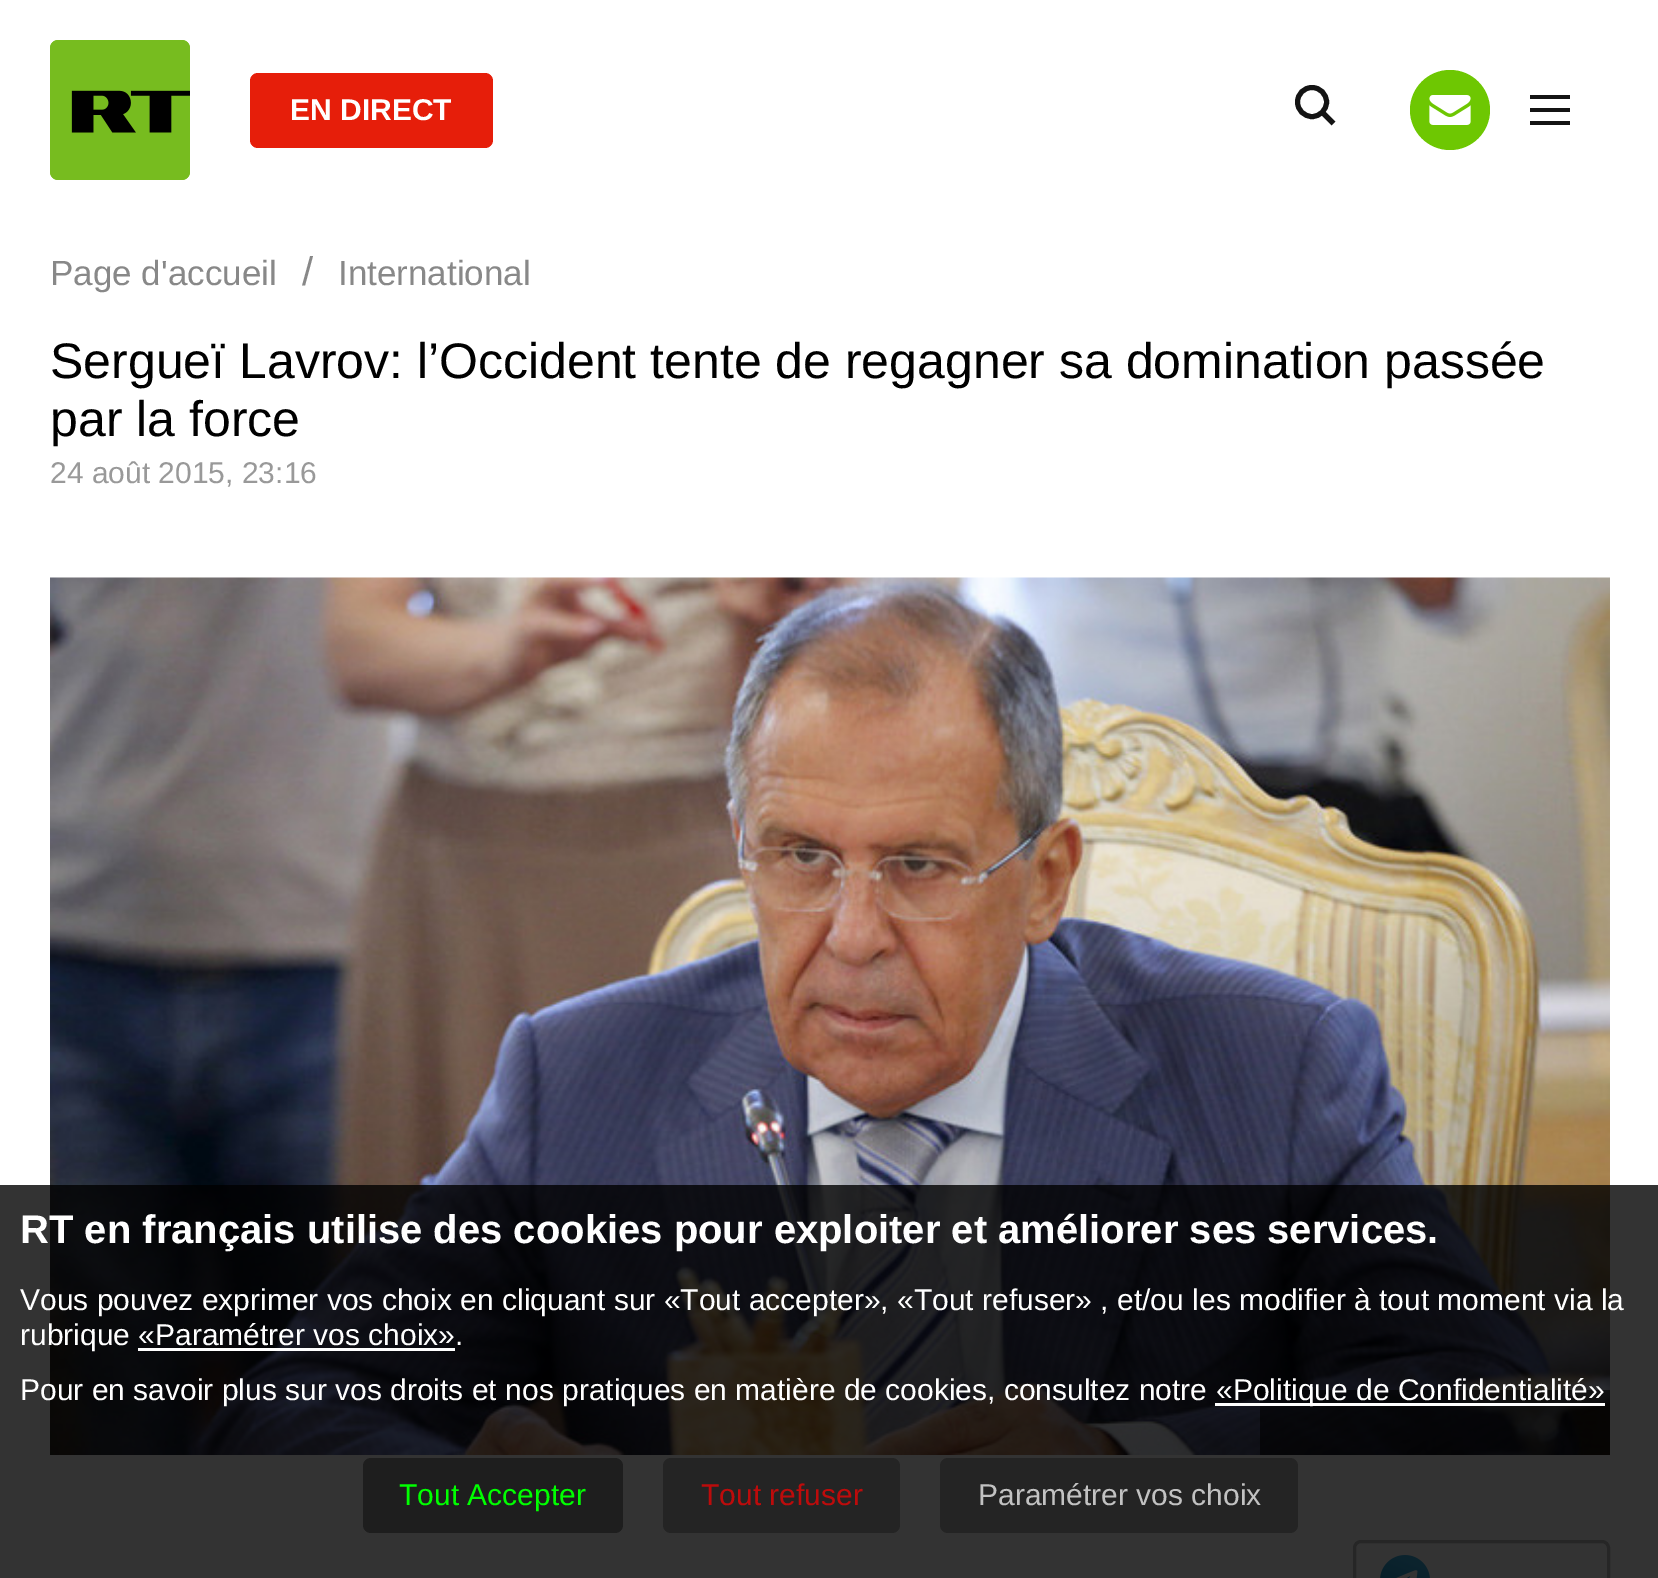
%!PS
<< /PageSize [1658 1578] /PageUsesTransparency true >> setpagedevice
/mt/moveto load def
/li/lineto load def
/fl/fill load def
/st/stroke load def
/lw/setlinewidth load def
/co { dup -16 bitshift 255 div exch dup -8 bitshift 255 and 255 div exch 255 and 255 div setrgbcolor } def
/fn { [ exch dup neg 0 0 3 -1 roll 0 0 ] selectfont } def
/tx { co fn moveto show } def
/bx { co rectfill } def
/al { dup .setfillconstantalpha .setstrokeconstantalpha } def
/ci { newpath 0 360 arc closepath } def
/rr { 5 dict begin { /r /h /w /y /x } { exch def } forall
  x r add y moveto x w add y 2 copy h add r arct x w add y h add x 1 index r arct
  x y h add x y r arct x y 2 copy exch w add exch r arct closepath end } def
/im { 5 dict begin { /h /w /y /x /name } { exch def } forall
  gsave x y translate w h scale
  w h 8 [w 0 0 h 0 0] name (r) file false 3 colorimage grestore end } def
0 .pushpdf14devicefilter
0 1578 translate 1 -1 scale
4 setmiterlimit
0 0 1658 1578 16#FFFFFF bx
(media/1.raw) 50 40 140 140 im
16#E61E0A co
250 73 243 75 8 rr fl
16#141414 co
5 lw
1312 102 14.5 ci st
1322.5 112.5 mt 1333.5 123.5 li st
16#6EC702 co
1450 110 40 ci fl
(media/2.raw) 1429 95 42 30 im
1530 95 40 4 16#141414 bx
1530 108 40 4 16#141414 bx
1530 121 40 4 16#141414 bx
(media/3.raw) 50 577 1560 878 im
0.6 al
1260 1390 350 65 16#000000 bx
1 al
16#BCBCBC co
3 lw
1354.5 1541.5 254 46 6.5 rr st
(media/4.raw) 1380 1555 50 23 im
0.8 al
0 1185 1658 393 16#000000 bx
1 al
138 1348 317 3 16#FFFFFF bx
1215 1403 390 3 16#FFFFFF bx
16#1E1E1E co
363 1458 260 75 8 rr fl
0.7 al
663 1458 237 75 8 rr fl
1 al
16#242424 co
940 1458 358 75 8 rr fl
(EN DIRECT) 290 120 /LiberationSans-Bold 30 16#FFFFFF tx
(Page d'accueil) 50 285 /LiberationSans-Regular 35 16#888888 tx
(/) 302 285 /LiberationSans-Regular 40 16#888888 tx
(International) 338 285 /LiberationSans-Regular 35 16#888888 tx
(Sergueï Lavrov: l’Occident tente de regagner sa domination passée) 50 378 /LiberationSans-Regular 50 16#000000 tx
(par la force) 50 436 /LiberationSans-Regular 50 16#000000 tx
(24 août 2015, 23:16) 50 483 /LiberationSans-Regular 30 16#999999 tx
(RT en français utilise des cookies pour exploiter et améliorer ses services.) 20 1243 /LiberationSans-Bold 40 16#FFFFFF tx
(Vous pouvez exprimer vos choix en cliquant sur «Tout accepter», «Tout refuser» , et/ou les modifier à tout moment via la) 20 1310 /LiberationSans-Regular 30 16#FFFFFF tx
(rubrique «Paramétrer vos choix».) 20 1345 /LiberationSans-Regular 30 16#FFFFFF tx
(Pour en savoir plus sur vos droits et nos pratiques en matière de cookies, consultez notre) 20 1400 /LiberationSans-Regular 30 16#FFFFFF tx
(«Politique de Confidentialité») 1216 1400 /LiberationSans-Regular 30 16#FFFFFF tx
(Tout Accepter) 399 1505 /LiberationSans-Regular 30 16#00FF00 tx
(Tout refuser) 701 1505 /LiberationSans-Regular 30 16#BD0B0B tx
(Paramétrer vos choix) 978 1505 /LiberationSans-Regular 30 16#C2C2C2 tx
.poppdf14devicefilter showpage
